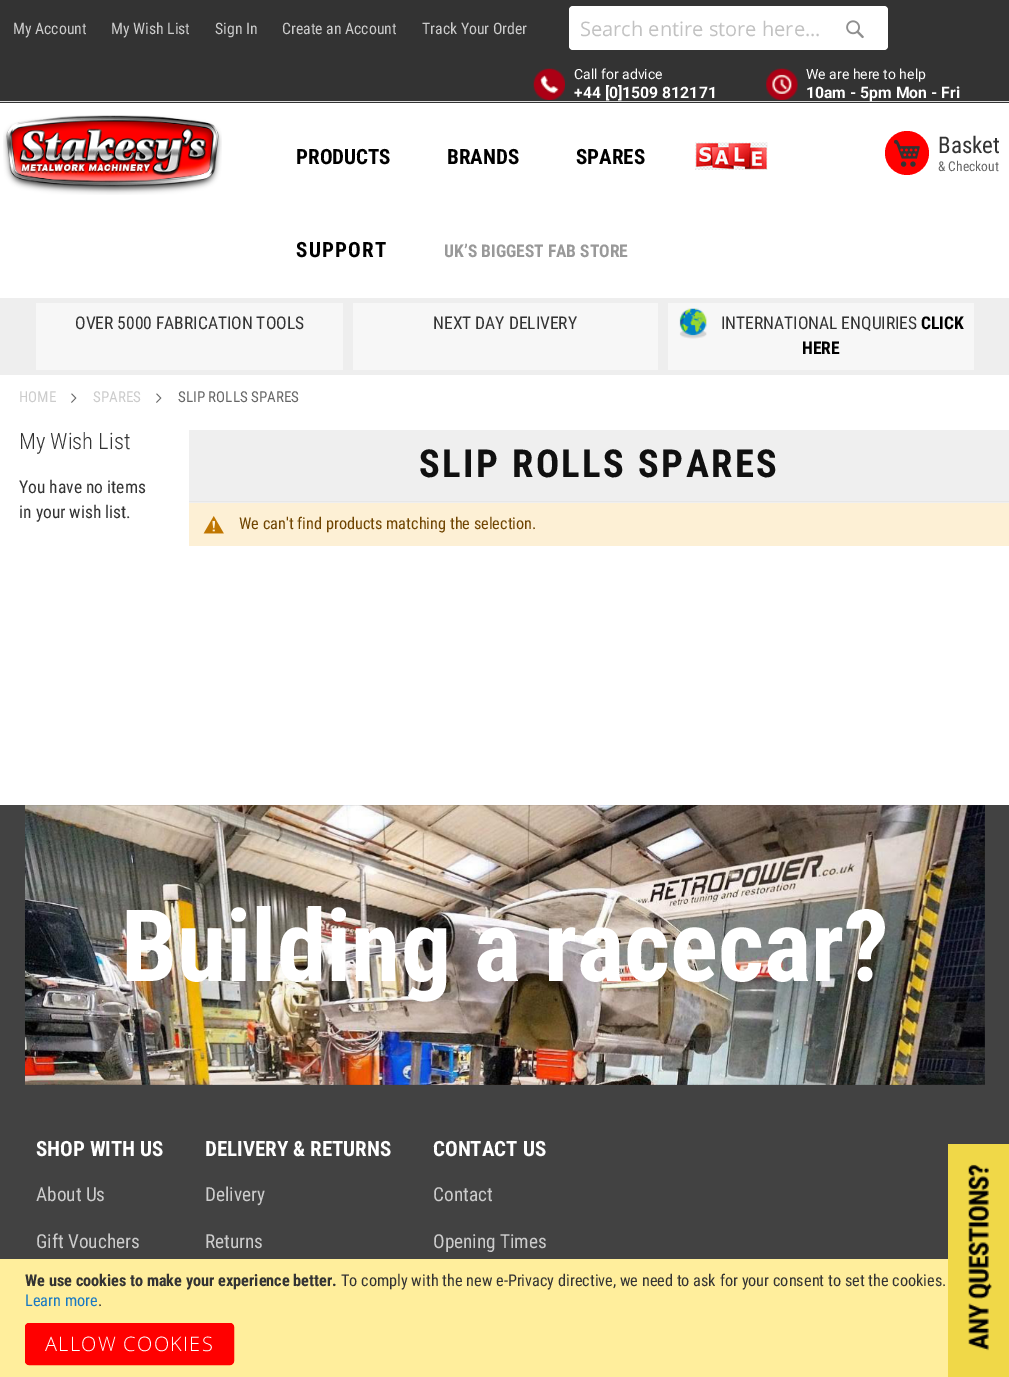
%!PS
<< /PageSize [1009 1377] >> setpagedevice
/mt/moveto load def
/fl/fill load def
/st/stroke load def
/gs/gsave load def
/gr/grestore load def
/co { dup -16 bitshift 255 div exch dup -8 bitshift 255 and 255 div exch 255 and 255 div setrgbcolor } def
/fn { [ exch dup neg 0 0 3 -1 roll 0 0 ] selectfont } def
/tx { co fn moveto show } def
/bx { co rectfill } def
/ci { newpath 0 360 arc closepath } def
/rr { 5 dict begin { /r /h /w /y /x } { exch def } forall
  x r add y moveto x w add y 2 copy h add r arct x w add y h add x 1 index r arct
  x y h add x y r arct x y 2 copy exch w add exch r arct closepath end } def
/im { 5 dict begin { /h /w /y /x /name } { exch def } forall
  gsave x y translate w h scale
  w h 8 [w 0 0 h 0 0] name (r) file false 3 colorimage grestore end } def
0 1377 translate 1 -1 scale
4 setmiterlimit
0 0 1009 1377 16#FFFFFF bx
0 0 1009 103 16#333333 bx
0 101 1009 1 16#DDDDDD bx
16#FFFFFF co
569 6 319 44 4 rr fl
(media/1.raw) 846 20 18 19 im
(media/2.raw) 533 68 32 32 im
(media/3.raw) 766 68 32 32 im
(media/4.raw) 3 115 219 80 im
(media/5.raw) 695 142 73 28 im
16#FF0000 co
907 153 22 ci fl
(media/6.raw) 894 139 26 28 im
0 298 1009 77 16#EEEEEE bx
36 303 307 67 16#F7F7F7 bx
353 303 305 67 16#F7F7F7 bx
668 303 306 67 16#F7F7F7 bx
(media/7.raw) 679 308 28 31 im
(media/8.raw) 71 393 6 10 im
(media/8.raw) 156 393 6 10 im
189 430 820 73 16#EFEFEF bx
189 501 820 1 16#E7E7E7 bx
189 503 820 43 16#FDF0D5 bx
(media/9.raw) 203 516 21 18 im
0 805 1009 454 16#424242 bx
(media/10.raw) 25 805 960 280 im
948 1144 61 233 16#F0D848 bx
(media/11.raw) 968 1164 24 187 im
0 1259 948 118 16#FFEE9C bx
16#FF0000 co
25.5 1323.5 208 41 3.5 rr gs fl gr
st
(My Account) 13 34 /RobotoCondensed-Regular 15.75 16#CCCCCC tx
(My Wish List) 111 34 /RobotoCondensed-Regular 15.75 16#CCCCCC tx
(Sign In) 215 34 /RobotoCondensed-Regular 15.75 16#CCCCCC tx
(Create an Account) 282 34 /RobotoCondensed-Regular 15.75 16#CCCCCC tx
(Track Your Order) 422 34 /RobotoCondensed-Regular 15.75 16#CCCCCC tx
(Search entire store here...) 580 36 /OpenSans-Regular 20 16#C2C2C2 tx
(Call for advice) 574 79 /Roboto-Regular 14 16#FFFFFF tx
(+44 [0]1509 812171) 574 98 /Roboto-Bold 15.75 16#FFFFFF tx
(We are here to help) 806 79 /Roboto-Regular 14 16#FFFFFF tx
(10am - 5pm Mon - Fri) 806 98 /Roboto-Bold 15.75 16#FFFFFF tx
(PRODUCTS) 296 164 /RobotoCondensed-Bold 21 16#000000 tx
(BRANDS) 447 164 /RobotoCondensed-Bold 21 16#000000 tx
(SPARES) 576 164 /RobotoCondensed-Bold 21 16#000000 tx
296 257 mt 1.25 0 (SUPPORT) ashow
(UK’S BIGGEST FAB STORE) 444 257 /RobotoCondensed-Bold 17.5 16#999999 tx
(Basket) 938 153 /RobotoCondensed-Regular 23 16#333333 tx
(& Checkout) 938 171 /RobotoCondensed-Regular 13.5 16#666666 tx
(OVER 5000 FABRICATION TOOLS) 75 329 /RobotoCondensed-Regular 17.5 16#333333 tx
(NEXT DAY DELIVERY) 433 329 /RobotoCondensed-Regular 17.5 16#333333 tx
(INTERNATIONAL ENQUIRIES) 721 329 /RobotoCondensed-Regular 17.5 16#333333 tx
(CLICK) 921 329 /RobotoCondensed-Bold 17.5 16#000000 tx
(HERE) 802 354 /RobotoCondensed-Bold 17.5 16#000000 tx
(HOME) 19 402 /RobotoCondensed-Regular 15 16#CCCCCC tx
(SPARES) 93 402 /RobotoCondensed-Regular 15 16#CCCCCC tx
(SLIP ROLLS SPARES) 178 402 /RobotoCondensed-Regular 15 16#666666 tx
(My Wish List) 19 449 /RobotoCondensed-Light 22.5 16#333333 tx
(You have no items) 19 493 /RobotoCondensed-Regular 17.5 16#333333 tx
(in your wish list.) 19 518 /RobotoCondensed-Regular 17.5 16#333333 tx
/RobotoCondensed-Bold 38.5 fn
16#101010 co
419 477 mt 2.5 0 (SLIP ROLLS SPARES) ashow
(We can't find products matching the selection.) 239 529 /RobotoCondensed-Regular 16.25 16#6F4400 tx
(Building a racecar?) 121 981 /RobotoCondensed-Bold 100 16#FFFFFF tx
(SHOP WITH US) 36 1156 /RobotoCondensed-Bold 21 16#FFFFFF tx
(About Us) 36 1201 /RobotoCondensed-Regular 19.25 16#CCCCCC tx
(Gift Vouchers) 36 1248 /RobotoCondensed-Regular 19.25 16#CCCCCC tx
(DELIVERY & RETURNS) 205 1156 /RobotoCondensed-Bold 21 16#FFFFFF tx
(Delivery) 205 1201 /RobotoCondensed-Regular 19.25 16#CCCCCC tx
(Returns) 205 1248 /RobotoCondensed-Regular 19.25 16#CCCCCC tx
(CONTACT US) 433 1156 /RobotoCondensed-Bold 21 16#FFFFFF tx
(Contact) 433 1201 /RobotoCondensed-Regular 19.25 16#CCCCCC tx
(Opening Times) 433 1248 /RobotoCondensed-Regular 19.25 16#CCCCCC tx
(We use cookies to make your experience better.) 25 1286 /RobotoCondensed-Bold 16.25 16#333333 tx
(To comply with the new e-Privacy directive, we need to ask for your consent to set the cookies.) 341 1286 /RobotoCondensed-Regular 16.25 16#333333 tx
(Learn more) 25 1306 /RobotoCondensed-Regular 16.25 16#1979C3 tx
(.) 98 1306 /RobotoCondensed-Regular 16.25 16#333333 tx
/OpenSans-Light 20 fn
16#FFFFFF co
45 1351 mt 1.25 0 (ALLOW COOKIES) ashow
showpage
